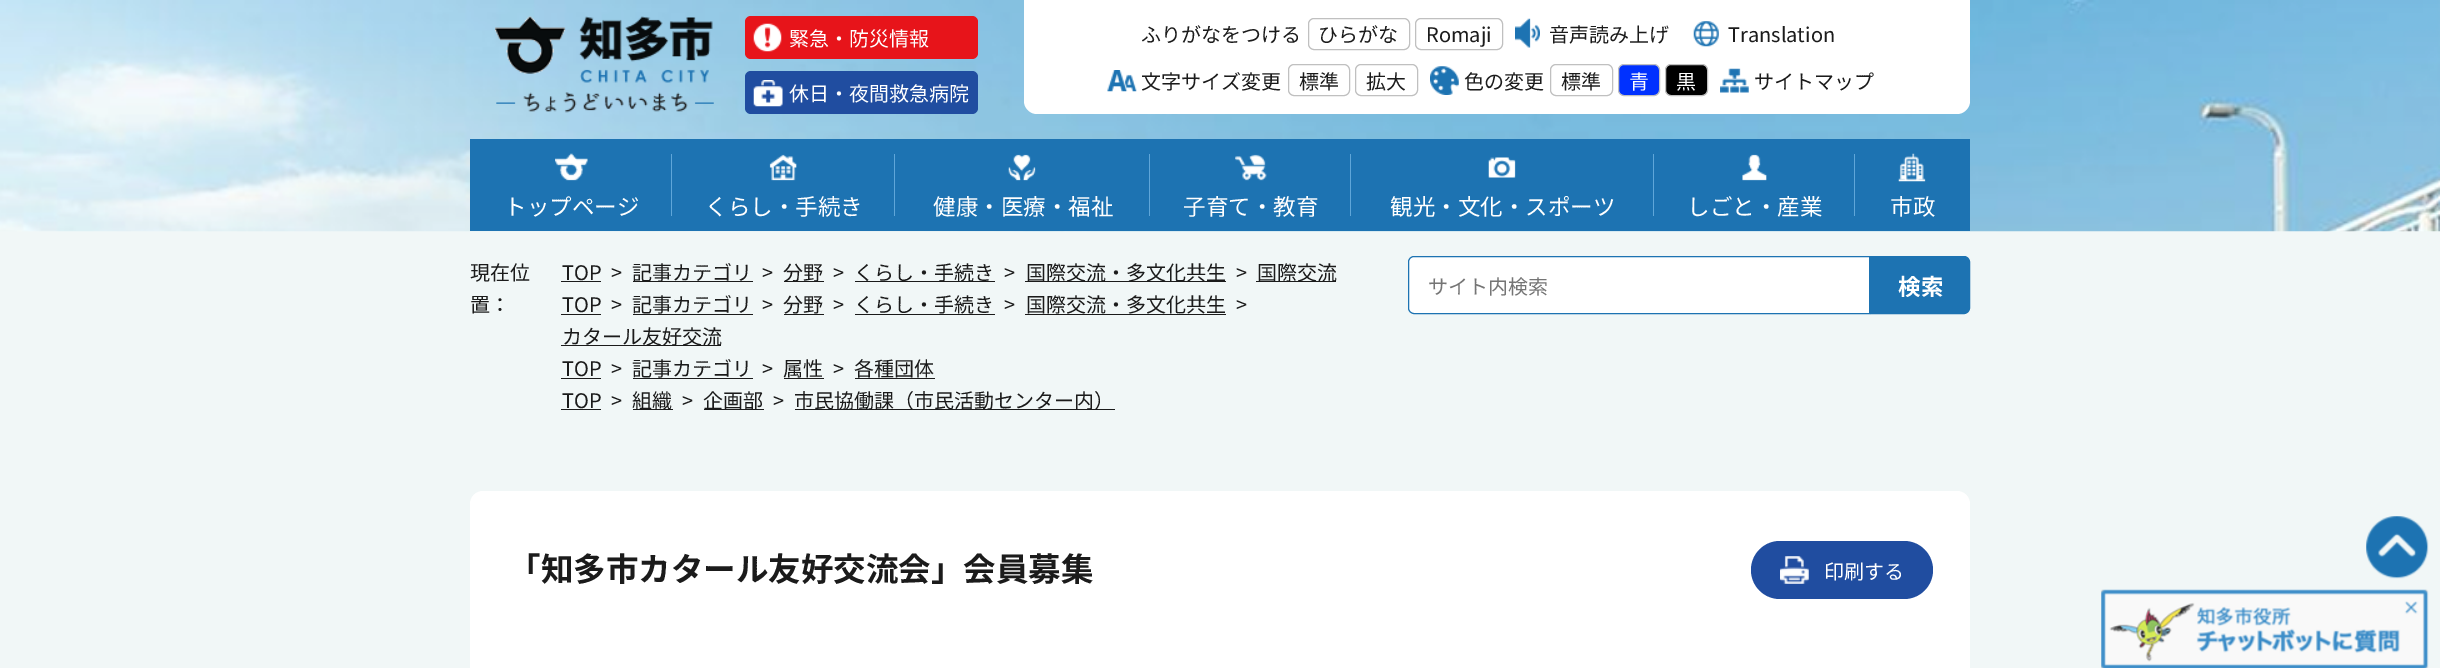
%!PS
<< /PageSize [2440 668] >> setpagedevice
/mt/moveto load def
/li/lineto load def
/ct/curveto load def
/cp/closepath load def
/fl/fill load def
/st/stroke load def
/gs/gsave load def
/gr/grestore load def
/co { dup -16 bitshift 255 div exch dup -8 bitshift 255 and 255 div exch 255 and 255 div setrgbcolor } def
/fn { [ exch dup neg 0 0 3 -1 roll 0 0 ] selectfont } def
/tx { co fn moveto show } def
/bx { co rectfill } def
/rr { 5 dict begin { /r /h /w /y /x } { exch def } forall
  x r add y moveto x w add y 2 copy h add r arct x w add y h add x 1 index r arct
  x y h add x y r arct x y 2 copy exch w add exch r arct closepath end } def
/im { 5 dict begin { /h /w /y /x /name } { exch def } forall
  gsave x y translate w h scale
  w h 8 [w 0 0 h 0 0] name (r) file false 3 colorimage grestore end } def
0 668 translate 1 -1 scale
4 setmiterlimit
0 0 2440 668 16#F1F7F7 bx
(media/1.raw) 0 0 2440 232 im
(media/2.raw) 495 16 219 97 im
16#E7141A co
745 16 233 43 6 rr fl
(media/3.raw) 753 23 29 29 im
16#204DA0 co
745 71 233 43 6 rr fl
(media/4.raw) 753 80 30 27 im
16#FFFFFF co
1024 0 mt 1970 0 li 1970 101 li 1970 108 1964 114 1957 114 ct 1037 114 li 1030 114 1024 108 1024 101 ct cp fl
16#C0C0C0 co
1308.5 18.5 101 31 5.5 rr st
1415.5 18.5 87 31 5.5 rr st
(media/5.raw) 1515 18 25 30 im
(media/6.raw) 1693 21 26 26 im
(media/7.raw) 1107 70 30 22 im
1288.5 64.5 61 31 5.5 rr st
1355.5 64.5 62 31 5.5 rr st
(media/8.raw) 1430 66 29 29 im
1550.5 64.5 62 31 5.5 rr st
16#0031FF co
1618.5 64.5 41 31 5.5 rr gs fl gr
16#C0C0C0 co
st
16#000000 co
1665.5 64.5 42 31 5.5 rr gs fl gr
16#C0C0C0 co
st
(media/9.raw) 1720 68 29 25 im
470 139 1500 92 16#1D73B2 bx
(media/10.raw) 555 153 33 28 im
671 154 1 62 16#5FA6D9 bx
(media/11.raw) 769 154 28 27 im
894 154 1 62 16#5FA6D9 bx
(media/12.raw) 1008 154 28 27 im
1149 154 1 62 16#5FA6D9 bx
(media/13.raw) 1235 154 32 27 im
1350 154 1 62 16#5FA6D9 bx
(media/14.raw) 1488 157 28 21 im
1653 154 1 62 16#5FA6D9 bx
(media/15.raw) 1742 154 25 27 im
1854 154 1 62 16#5FA6D9 bx
(media/16.raw) 1898 153 28 29 im
561 281 40 1 16#1B1B1B bx
633 281 120 1 16#1B1B1B bx
784 281 40 1 16#1B1B1B bx
855 281 140 1 16#1B1B1B bx
1025 281 201 1 16#1B1B1B bx
1256 281 80 1 16#1B1B1B bx
561 314 40 1 16#1B1B1B bx
633 314 120 1 16#1B1B1B bx
784 314 40 1 16#1B1B1B bx
855 314 140 1 16#1B1B1B bx
1025 314 201 1 16#1B1B1B bx
561 345 160 1 16#1B1B1B bx
561 378 40 1 16#1B1B1B bx
633 378 120 1 16#1B1B1B bx
784 378 40 1 16#1B1B1B bx
855 378 80 1 16#1B1B1B bx
561 409 40 1 16#1B1B1B bx
633 409 40 1 16#1B1B1B bx
704 409 60 1 16#1B1B1B bx
795 409 320 1 16#1B1B1B bx
16#FFFFFF co
1414 256.5 mt 1869.5 256.5 li 1869.5 313.5 li 1414 313.5 li 1411 313.5 1408.5 311 1408.5 308 ct 1408.5 262 li 1408.5 259 1411 256.5 1414 256.5 ct cp gs fl gr
16#1D73B2 co
st
1870.5 256.5 mt 1964 256.5 li 1967 256.5 1969.5 259 1969.5 262 ct 1969.5 308 li 1969.5 311 1967 313.5 1964 313.5 ct 1870.5 313.5 li cp gs fl gr
st
16#FFFFFF co
470 491 1500 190 13 rr fl
16#204DA0 co
1751 541 182 58 29 rr fl
(media/17.raw) 1780 556 29 28 im
(media/18.raw) 2366 516 63 63 im
(media/19.raw) 2101 589 328 79 im
(緊急・防災情報) 789 46 /NotoSansJP-Regular 20 16#FFFFFF tx
(休⽇・夜間救急病院) 789 101 /NotoSansJP-Regular 20 16#FFFFFF tx
(ふりがなをつける) 1141 42 /NotoSansJP-Regular 20 16#1B1B1B tx
(ひらがな) 1318 42 /NotoSansJP-Regular 20 16#1B1B1B tx
(Romaji) 1426 42 /NotoSansJP-Regular 20 16#1B1B1B tx
(音声読み上げ) 1549 42 /NotoSansJP-Regular 20 16#1B1B1B tx
(Translation) 1728 42 /NotoSansJP-Regular 20 16#1B1B1B tx
(文字サイズ変更) 1141 89 /NotoSansJP-Regular 20 16#1B1B1B tx
(標準) 1299 89 /NotoSansJP-Regular 20 16#1B1B1B tx
(拡大) 1366 89 /NotoSansJP-Regular 20 16#1B1B1B tx
(色の変更) 1464 89 /NotoSansJP-Regular 20 16#1B1B1B tx
(標準) 1561 89 /NotoSansJP-Regular 20 16#1B1B1B tx
(青) 1629 89 /NotoSansJP-Regular 20 16#FFFFFF tx
(黒) 1676 89 /NotoSansJP-Regular 20 16#FFFFFF tx
(サイトマップ) 1754 89 /NotoSansJP-Regular 20 16#1B1B1B tx
(トップページ) 504 215 /NotoSansJP-Regular 22.5 16#FFFFFF tx
(くらし・手続き) 705 215 /NotoSansJP-Regular 22.5 16#FFFFFF tx
(健康・医療・福祉) 933 215 /NotoSansJP-Regular 22.5 16#FFFFFF tx
(子育て・教育) 1183 215 /NotoSansJP-Regular 22.5 16#FFFFFF tx
(観光・文化・スポーツ) 1390 215 /NotoSansJP-Regular 22.5 16#FFFFFF tx
(しごと・産業) 1687 215 /NotoSansJP-Regular 22.5 16#FFFFFF tx
(市政) 1890 215 /NotoSansJP-Regular 22.5 16#FFFFFF tx
(現在位) 470 280 /NotoSansJP-Regular 20 16#1B1B1B tx
(置：) 470 312 /NotoSansJP-Regular 20 16#1B1B1B tx
(TOP) 562 280 /NotoSansJP-Regular 20 16#1B1B1B tx
(>) 611 280 /NotoSansJP-Regular 20 16#1B1B1B tx
(記事カテゴリ) 632 280 /NotoSansJP-Regular 20 16#1B1B1B tx
(>) 762 280 /NotoSansJP-Regular 20 16#1B1B1B tx
(分野) 783 280 /NotoSansJP-Regular 20 16#1B1B1B tx
(>) 833 280 /NotoSansJP-Regular 20 16#1B1B1B tx
(くらし・手続き) 854 280 /NotoSansJP-Regular 20 16#1B1B1B tx
(>) 1004 280 /NotoSansJP-Regular 20 16#1B1B1B tx
(国際交流・多文化共生) 1026 280 /NotoSansJP-Regular 20 16#1B1B1B tx
(>) 1236 280 /NotoSansJP-Regular 20 16#1B1B1B tx
(国際交流) 1257 280 /NotoSansJP-Regular 20 16#1B1B1B tx
(TOP) 562 312 /NotoSansJP-Regular 20 16#1B1B1B tx
(>) 611 312 /NotoSansJP-Regular 20 16#1B1B1B tx
(記事カテゴリ) 632 312 /NotoSansJP-Regular 20 16#1B1B1B tx
(>) 762 312 /NotoSansJP-Regular 20 16#1B1B1B tx
(分野) 783 312 /NotoSansJP-Regular 20 16#1B1B1B tx
(>) 833 312 /NotoSansJP-Regular 20 16#1B1B1B tx
(くらし・手続き) 854 312 /NotoSansJP-Regular 20 16#1B1B1B tx
(>) 1004 312 /NotoSansJP-Regular 20 16#1B1B1B tx
(国際交流・多文化共生) 1026 312 /NotoSansJP-Regular 20 16#1B1B1B tx
(>) 1236 312 /NotoSansJP-Regular 20 16#1B1B1B tx
(カタール友好交流) 562 344 /NotoSansJP-Regular 20 16#1B1B1B tx
(TOP) 562 376 /NotoSansJP-Regular 20 16#1B1B1B tx
(>) 611 376 /NotoSansJP-Regular 20 16#1B1B1B tx
(記事カテゴリ) 632 376 /NotoSansJP-Regular 20 16#1B1B1B tx
(>) 762 376 /NotoSansJP-Regular 20 16#1B1B1B tx
(属性) 783 376 /NotoSansJP-Regular 20 16#1B1B1B tx
(>) 833 376 /NotoSansJP-Regular 20 16#1B1B1B tx
(各種団体) 854 376 /NotoSansJP-Regular 20 16#1B1B1B tx
(TOP) 562 408 /NotoSansJP-Regular 20 16#1B1B1B tx
(>) 611 408 /NotoSansJP-Regular 20 16#1B1B1B tx
(組織) 632 408 /NotoSansJP-Regular 20 16#1B1B1B tx
(>) 682 408 /NotoSansJP-Regular 20 16#1B1B1B tx
(企画部) 703 408 /NotoSansJP-Regular 20 16#1B1B1B tx
(>) 773 408 /NotoSansJP-Regular 20 16#1B1B1B tx
(市民協働課（市民活動センター内）) 794 408 /NotoSansJP-Regular 20 16#1B1B1B tx
(サイト内検索) 1428 294 /NotoSansJP-Regular 20 16#757575 tx
(検索) 1898 295 /NotoSansJP-Bold 22.5 16#FFFFFF tx
(「知多市カタール友好交流会」会員募集) 508 581 /NotoSansJP-Bold 32.5 16#1B1B1B tx
(印刷する) 1824 579 /NotoSansJP-Regular 20 16#FFFFFF tx
showpage
